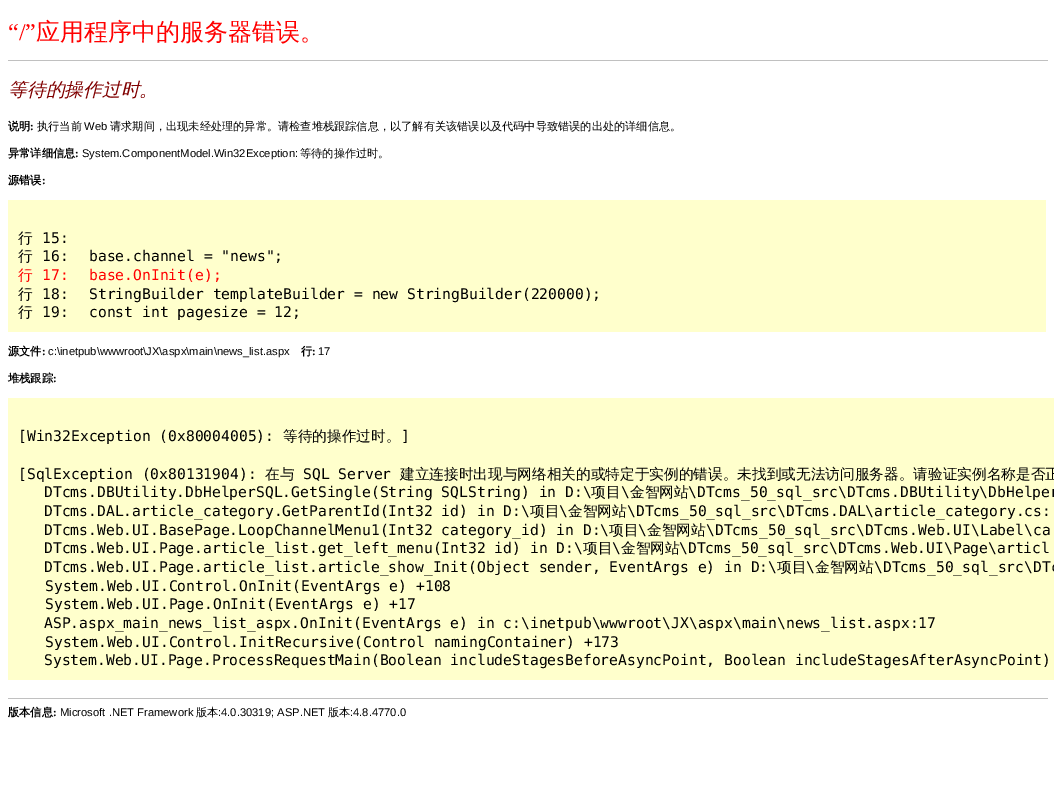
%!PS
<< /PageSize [1054 797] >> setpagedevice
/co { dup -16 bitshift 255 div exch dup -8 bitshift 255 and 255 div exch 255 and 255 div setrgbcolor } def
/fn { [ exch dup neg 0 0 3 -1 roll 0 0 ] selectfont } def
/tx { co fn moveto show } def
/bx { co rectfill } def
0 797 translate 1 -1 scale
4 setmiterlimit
0 0 1054 797 16#FFFFFF bx
8 60 1040 1 16#C0C0C0 bx
8 200 1038 132 16#FFFFCC bx
8 398 1046 282 16#FFFFCC bx
8 698 1040 1 16#C0C0C0 bx
(“/”) 8 40 /LiberationSerif-Regular 24 16#FF0000 tx
(应用程序中的服务器错误。) 36 40 /WenQuanYiZenHei-Medium 24 16#FF0000 tx
(等待的操作过时。) 8 96 /WenQuanYiZenHei-MediumItalic 18.75 16#800000 tx
(说明) 8 130 /WenQuanYiZenHei-Bold 11.2 16#000000 tx
(:) 30 130 /LiberationSerif-Bold 11.2 16#000000 tx
(执行当前) 37 130 /WenQuanYiZenHei-Medium 11.2 16#000000 tx
(Web) 84 130 /LiberationSans-Regular 11.2 16#000000 tx
(请求期间，出现未经处理的异常。请检查堆栈跟踪信息，以了解有关该错误以及代码中导致错误的出处的详细信息。) 110 130 /WenQuanYiZenHei-Medium 11.2 16#000000 tx
(异常详细信息) 8 157 /WenQuanYiZenHei-Bold 11.2 16#000000 tx
(:) 75 157 /LiberationSerif-Bold 11.2 16#000000 tx
(System.ComponentModel.Win32Exception:) 82 157 /LiberationSans-Regular 11.2 16#000000 tx
(等待的操作过时。) 300 157 /WenQuanYiZenHei-Medium 11.2 16#000000 tx
(源错误) 8 184 /WenQuanYiZenHei-Bold 11.2 16#000000 tx
(:) 42 184 /LiberationSerif-Bold 11.2 16#000000 tx
(行) 18 243 /WenQuanYiZenHei-Medium 14.67 16#000000 tx
(15:) 42 243 /DejaVuSansMono-Regular 14.67 16#000000 tx
(行) 18 261 /WenQuanYiZenHei-Medium 14.67 16#000000 tx
(16:) 42 261 /DejaVuSansMono-Regular 14.67 16#000000 tx
(base.channel = "news";) 89 261 /DejaVuSansMono-Regular 14.67 16#000000 tx
(行) 18 280 /WenQuanYiZenHei-Medium 14.67 16#FF0000 tx
(17:) 42 280 /DejaVuSansMono-Regular 14.67 16#FF0000 tx
(base.OnInit\(e\);) 89 280 /DejaVuSansMono-Regular 14.67 16#FF0000 tx
(行) 18 299 /WenQuanYiZenHei-Medium 14.67 16#000000 tx
(18:) 42 299 /DejaVuSansMono-Regular 14.67 16#000000 tx
(StringBuilder templateBuilder = new StringBuilder\(220000\);) 89 299 /DejaVuSansMono-Regular 14.67 16#000000 tx
(行) 18 317 /WenQuanYiZenHei-Medium 14.67 16#000000 tx
(19:) 42 317 /DejaVuSansMono-Regular 14.67 16#000000 tx
(const int pagesize = 12;) 89 317 /DejaVuSansMono-Regular 14.67 16#000000 tx
(源文件) 8 355 /WenQuanYiZenHei-Bold 11.2 16#000000 tx
(:) 42 355 /LiberationSerif-Bold 11.2 16#000000 tx
(c:\\inetpub\\wwwroot\\JX\\aspx\\main\\news_list.aspx) 48 355 /LiberationSans-Regular 11.2 16#000000 tx
(行) 301 355 /WenQuanYiZenHei-Bold 11.2 16#000000 tx
(:) 312 355 /LiberationSerif-Bold 11.2 16#000000 tx
(17) 318 355 /LiberationSans-Regular 11.2 16#000000 tx
(堆栈跟踪) 8 382 /WenQuanYiZenHei-Bold 11.2 16#000000 tx
(:) 53 382 /LiberationSerif-Bold 11.2 16#000000 tx
([Win32Exception \(0x80004005\):) 18 441 /DejaVuSansMono-Regular 14.67 16#000000 tx
(等待的操作过时。) 283 441 /WenQuanYiZenHei-Medium 14.67 16#000000 tx
(]) 401 441 /DejaVuSansMono-Regular 14.67 16#000000 tx
([SqlException \(0x80131904\):) 18 479 /DejaVuSansMono-Regular 14.67 16#000000 tx
(在与) 265 479 /WenQuanYiZenHei-Medium 14.67 16#000000 tx
(SQL Server) 303 479 /DejaVuSansMono-Regular 14.67 16#000000 tx
(建立连接时出现与网络相关的或特定于实例的错误。未找到或无法访问服务器。请验证实例名称是否正) 400 479 /WenQuanYiZenHei-Medium 14.67 16#000000 tx
(DTcms.DBUtility.DbHelperSQL.GetSingle\(String SQLString\) in D:\\) 44 497 /DejaVuSansMono-Regular 14.67 16#000000 tx
(项目) 591 497 /WenQuanYiZenHei-Medium 14.67 16#000000 tx
(\\) 621 497 /DejaVuSansMono-Regular 14.67 16#000000 tx
(金智网站) 630 497 /WenQuanYiZenHei-Medium 14.67 16#000000 tx
(\\DTcms_50_sql_src\\DTcms.DBUtility\\DbHelper) 688 497 /DejaVuSansMono-Regular 14.67 16#000000 tx
(DTcms.DAL.article_category.GetParentId\(Int32 id\) in D:\\) 44 516 /DejaVuSansMono-Regular 14.67 16#000000 tx
(项目) 530 516 /WenQuanYiZenHei-Medium 14.67 16#000000 tx
(\\) 559 516 /DejaVuSansMono-Regular 14.67 16#000000 tx
(金智网站) 568 516 /WenQuanYiZenHei-Medium 14.67 16#000000 tx
(\\DTcms_50_sql_src\\DTcms.DAL\\article_category.cs:) 627 516 /DejaVuSansMono-Regular 14.67 16#000000 tx
(DTcms.Web.UI.BasePage.LoopChannelMenu1\(Int32 category_id\) in D:\\) 44 535 /DejaVuSansMono-Regular 14.67 16#000000 tx
(项目) 609 535 /WenQuanYiZenHei-Medium 14.67 16#000000 tx
(\\) 638 535 /DejaVuSansMono-Regular 14.67 16#000000 tx
(金智网站) 647 535 /WenQuanYiZenHei-Medium 14.67 16#000000 tx
(\\DTcms_50_sql_src\\DTcms.Web.UI\\Label\\ca) 706 535 /DejaVuSansMono-Regular 14.67 16#000000 tx
(DTcms.Web.UI.Page.article_list.get_left_menu\(Int32 id\) in D:\\) 44 553 /DejaVuSansMono-Regular 14.67 16#000000 tx
(项目) 583 553 /WenQuanYiZenHei-Medium 14.67 16#000000 tx
(\\) 612 553 /DejaVuSansMono-Regular 14.67 16#000000 tx
(金智网站) 621 553 /WenQuanYiZenHei-Medium 14.67 16#000000 tx
(\\DTcms_50_sql_src\\DTcms.Web.UI\\Page\\articl) 679 553 /DejaVuSansMono-Regular 14.67 16#000000 tx
(DTcms.Web.UI.Page.article_list.article_show_Init\(Object sender, EventArgs e\) in D:\\) 44 572 /DejaVuSansMono-Regular 14.67 16#000000 tx
(项目) 777 572 /WenQuanYiZenHei-Medium 14.67 16#000000 tx
(\\) 806 572 /DejaVuSansMono-Regular 14.67 16#000000 tx
(金智网站) 815 572 /WenQuanYiZenHei-Medium 14.67 16#000000 tx
(\\DTcms_50_sql_src\\DTc) 874 572 /DejaVuSansMono-Regular 14.67 16#000000 tx
(System.Web.UI.Control.OnInit\(EventArgs e\) +108) 45 591 /DejaVuSansMono-Regular 14.67 16#000000 tx
(System.Web.UI.Page.OnInit\(EventArgs e\) +17) 45 609 /DejaVuSansMono-Regular 14.67 16#000000 tx
(ASP.aspx_main_news_list_aspx.OnInit\(EventArgs e\) in c:\\inetpub\\wwwroot\\JX\\aspx\\main\\news_list.aspx:17) 44 628 /DejaVuSansMono-Regular 14.67 16#000000 tx
(System.Web.UI.Control.InitRecursive\(Control namingContainer\) +173) 45 647 /DejaVuSansMono-Regular 14.67 16#000000 tx
(System.Web.UI.Page.ProcessRequestMain\(Boolean includeStagesBeforeAsyncPoint, Boolean includeStagesAfterAsyncPoint\)) 44 665 /DejaVuSansMono-Regular 14.67 16#000000 tx
(版本信息) 8 716 /WenQuanYiZenHei-Bold 11.2 16#000000 tx
(:) 53 716 /LiberationSerif-Bold 11.2 16#000000 tx
(Microsoft .NET Framework) 60 716 /LiberationSans-Regular 11.2 16#000000 tx
(版本) 196 716 /WenQuanYiZenHei-Medium 11.2 16#000000 tx
(:4.0.30319; ASP.NET) 218 716 /LiberationSans-Regular 11.2 16#000000 tx
(版本) 328 716 /WenQuanYiZenHei-Medium 11.2 16#000000 tx
(:4.8.4770.0) 350 716 /LiberationSans-Regular 11.2 16#000000 tx
showpage
